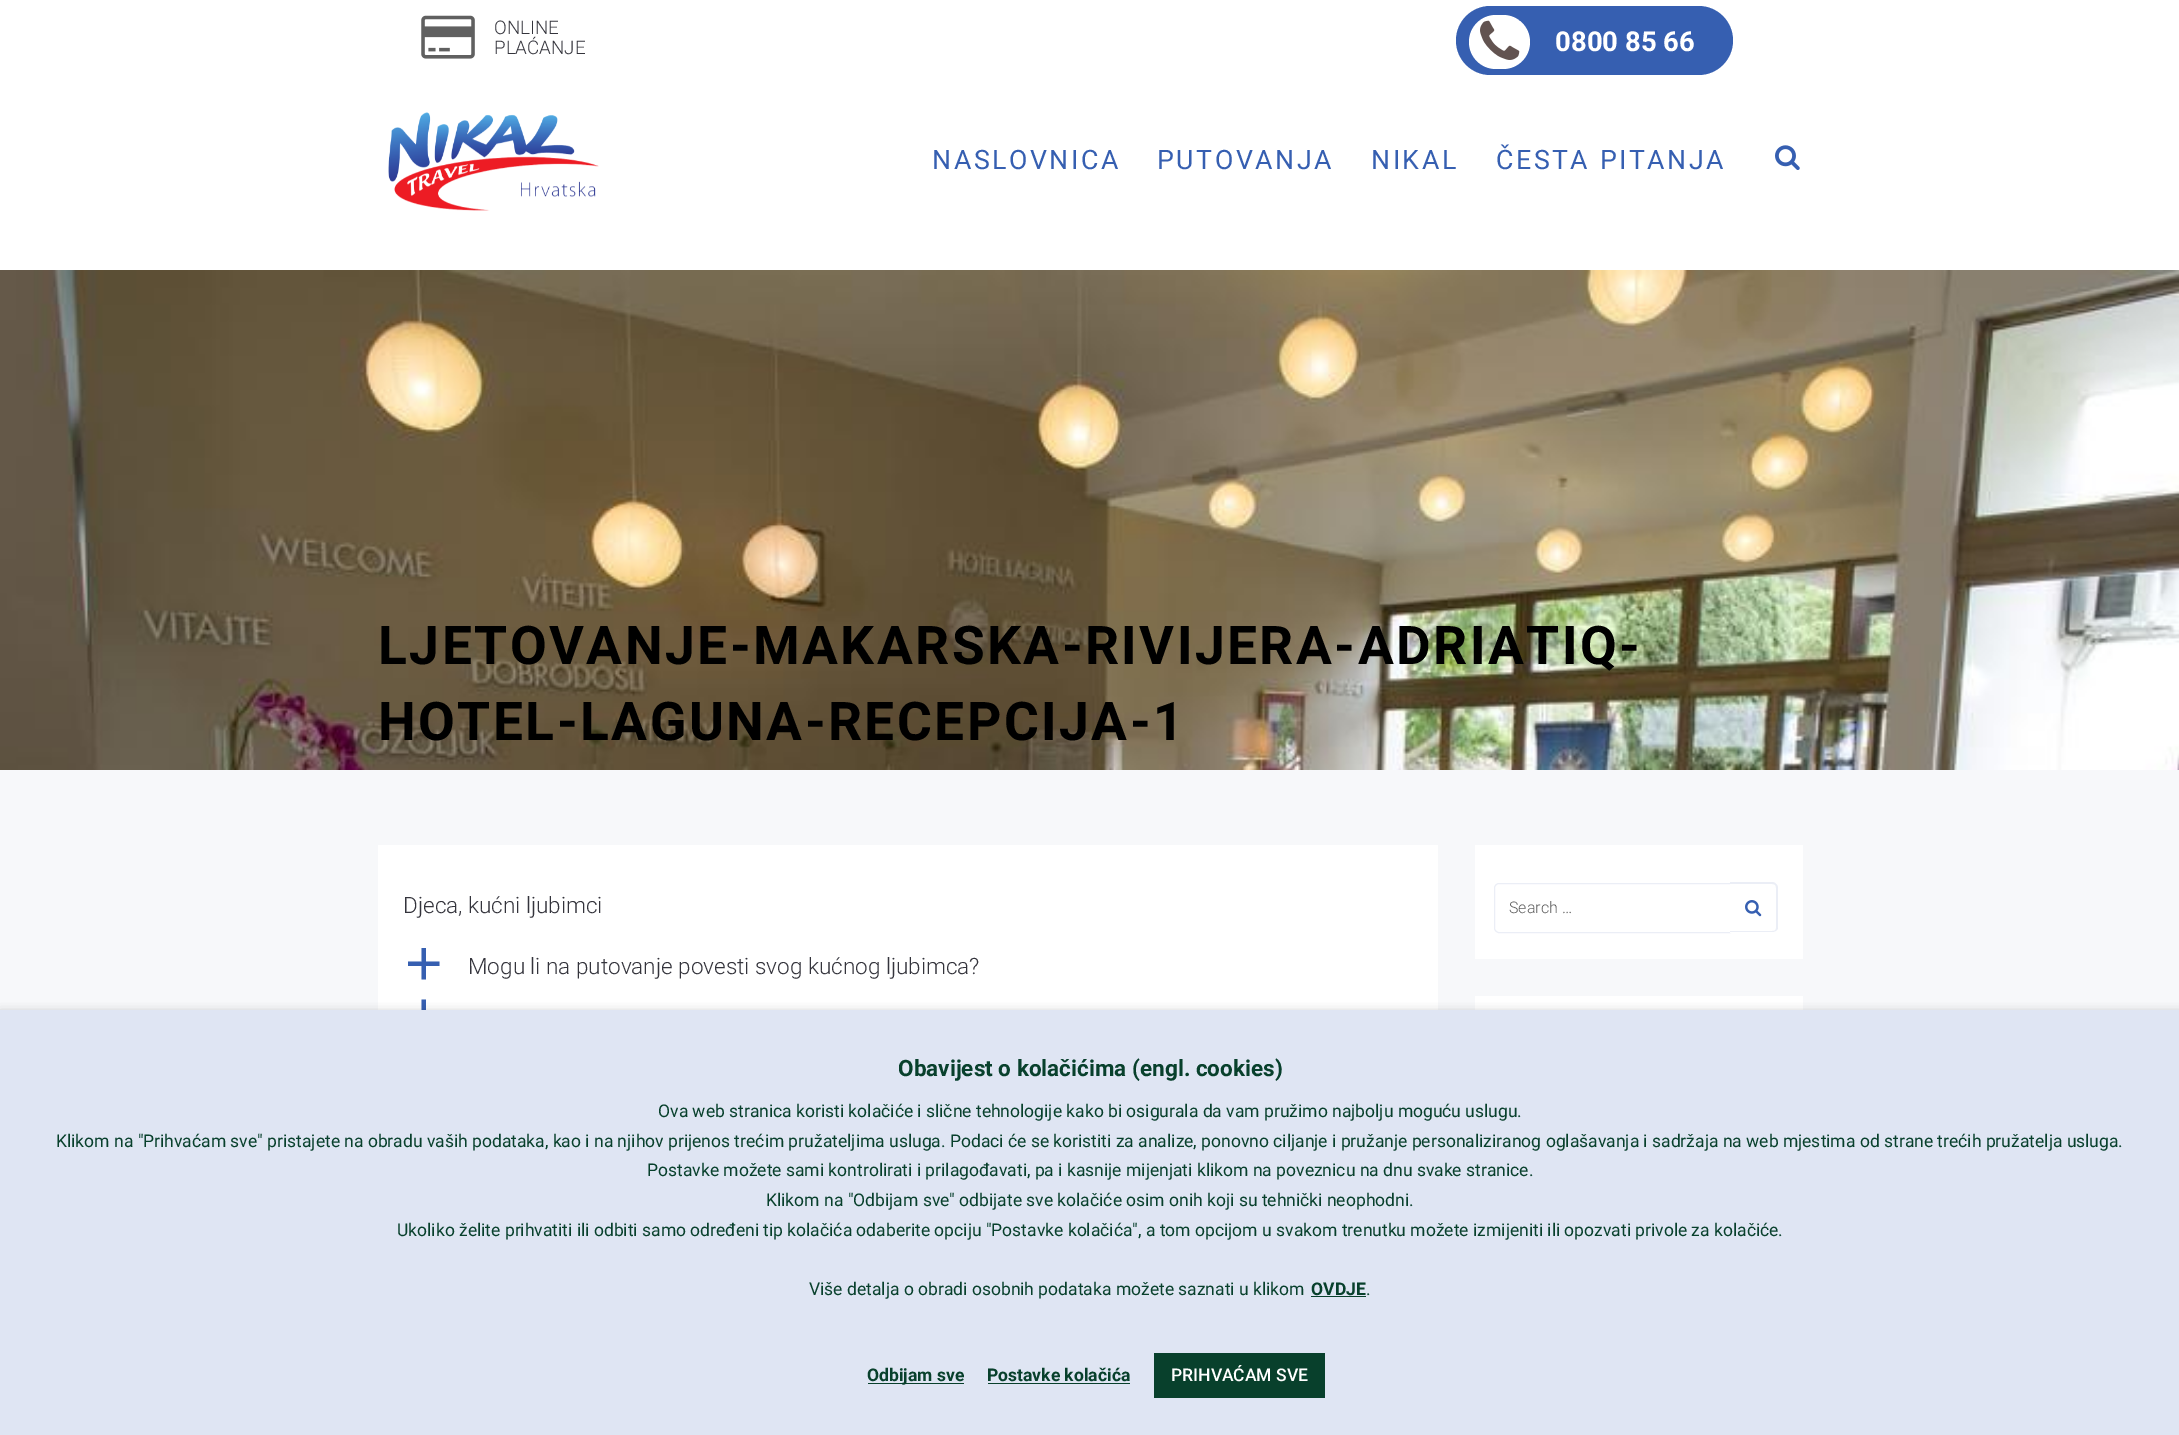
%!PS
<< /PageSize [2179 1435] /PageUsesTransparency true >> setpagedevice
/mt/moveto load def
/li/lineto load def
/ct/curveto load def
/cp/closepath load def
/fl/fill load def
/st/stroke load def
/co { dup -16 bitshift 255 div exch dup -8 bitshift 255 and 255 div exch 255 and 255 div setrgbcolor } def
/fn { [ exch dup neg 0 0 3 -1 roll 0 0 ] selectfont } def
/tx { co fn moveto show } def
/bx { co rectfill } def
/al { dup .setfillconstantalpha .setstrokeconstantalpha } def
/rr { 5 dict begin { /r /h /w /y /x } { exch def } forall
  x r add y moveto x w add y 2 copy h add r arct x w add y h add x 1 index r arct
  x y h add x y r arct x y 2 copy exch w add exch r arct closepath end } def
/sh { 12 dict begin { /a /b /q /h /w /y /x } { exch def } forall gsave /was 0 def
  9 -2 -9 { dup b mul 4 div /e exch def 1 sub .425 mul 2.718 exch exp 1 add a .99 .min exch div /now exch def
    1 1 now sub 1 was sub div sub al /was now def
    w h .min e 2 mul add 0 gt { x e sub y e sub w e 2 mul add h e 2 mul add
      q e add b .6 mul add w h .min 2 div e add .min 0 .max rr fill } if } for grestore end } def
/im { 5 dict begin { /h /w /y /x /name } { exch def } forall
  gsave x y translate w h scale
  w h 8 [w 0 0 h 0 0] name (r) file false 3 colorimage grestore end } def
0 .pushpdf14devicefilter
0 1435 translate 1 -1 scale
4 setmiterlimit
0 0 2179 1435 16#FFFFFF bx
(media/1.raw) 421 15 54 44 im
16#365FB1 co
1456 6 277 69 34.5 rr fl
16#FFFFFF co
1469 15 61 54 27 rr fl
(media/2.raw) 1480 20 40 40 im
(media/3.raw) 388 112 211 99 im
(media/4.raw) 1775 145 25 25 im
(media/5.raw) 0 270 2179 500 im
0 770 2179 240 16#F7F8FA bx
378 845 1060 165 16#FFFFFF bx
16#365FB1 co
421.5 948 mt 426 948 li 426 979.5 li 421.5 979.5 li cp 408 961.5 mt 439.5 961.5 li 439.5 966 li 408 966 li cp fl
421.5 999.5 mt 426 999.5 li 426 1030.5 li 421.5 1030.5 li cp 408 1012.5 mt 439.5 1012.5 li 439.5 1017.5 li 408 1017.5 li cp fl
1475 845 328 114 16#FFFFFF bx
16#EBEEF6 co
1499 883.5 mt 1730.5 883.5 li 1730.5 932.5 li 1499 932.5 li 1496.5 932.5 1494.5 930.5 1494.5 928 ct 1494.5 888 li 1494.5 885.5 1496.5 883.5 1499 883.5 ct cp st
16#FFFFFF co
1730 883 mt 1773 883 li 1776 883 1778 885 1778 888 ct 1778 928 li 1778 931 1776 933 1773 933 ct 1730 933 li cp fl
16#EBEEF6 co
1730 882 mt 1772 882 li 1775 882 1778 885 1778 888 ct 1778 928 li 1778 930 1775 932 1772 932 ct 1730 932 li cp 1730 884 mt 1772 884 li 1775 884 1776 885 1776 888 ct 1776 928 li 1776 930 1775 931 1772 931 ct 1730 931 li cp eofill
(media/6.raw) 1745 900 17 17 im
1475 996 328 14 16#FFFFFF bx
16#000000 co
0 1016 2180 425 0 6 .5 sh
0 1010 2179 425 16#DFE5F3 bx
1311 1296 55 1 16#08402C bx
868 1383 96 1 16#08402C bx
988 1383 142 1 16#08402C bx
1154 1353 171 45 16#08402C bx
(ONLINE) 494 34 /Roboto-Light 18.75 16#34343C tx
(PLAĆANJE) 494 54 /Roboto-Light 18.75 16#34343C tx
(0800 85 66) 1555 51 /Roboto-Bold 27.5 16#FFFFFF tx
/Roboto-Regular 26.75 fn
16#365FB1 co
932 169 mt 2.5 0 (NASLOVNICA) ashow
1157 169 mt 2.5 0 (PUTOVANJA) ashow
1371 169 mt 2.5 0 (NIKAL) ashow
1496 169 mt 2.5 0 (ČESTA PITANJA) ashow
/Roboto-Bold 53.3 fn
16#000000 co
378 664 mt 2.5 0 (LJETOVANJE-MAKARSKA-RIVIJERA-ADRIATIQ-) ashow
378 740 mt 2.5 0 (HOTEL-LAGUNA-RECEPCIJA-1) ashow
(Djeca, kućni ljubimci) 403 913 /Roboto-Light 22.5 16#34343C tx
(Mogu li na putovanje povesti svog kućnog ljubimca?) 468 974 /Roboto-Light 22.5 16#34343C tx
(Search …) 1509 913 /Roboto-Light 16 16#606060 tx
(Obavijest o kolačićima \(engl. cookies\)) 898 1076 /Roboto-Bold 22.5 16#08402C tx
(Ova web stranica koristi kolačiće i slične tehnologije kako bi osigurala da vam pružimo najbolju moguću uslugu.) 658 1117 /Roboto-Regular 17.5 16#08402C tx
(Klikom na "Prihvaćam sve" pristajete na obradu vaših podataka, kao i na njihov prijenos trećim pružateljima usluga. Podaci će se koristiti za analize, ponovno ciljanje i pružanje personaliziranog oglašavanja i sadržaja na web mjestima od strane trećih pružatelja usluga.) 56 1147 /Roboto-Regular 17.5 16#08402C tx
(Postavke možete sami kontrolirati i prilagođavati, pa i kasnije mijenjati klikom na poveznicu na dnu svake stranice.) 647 1176 /Roboto-Regular 17.5 16#08402C tx
(Klikom na "Odbijam sve" odbijate sve kolačiće osim onih koji su tehnički neophodni.) 766 1206 /Roboto-Regular 17.5 16#08402C tx
(Ukoliko želite prihvatiti ili odbiti samo određeni tip kolačića odaberite opciju "Postavke kolačića", a tom opcijom u svakom trenutku možete izmijeniti ili opozvati privole za kolačiće.) 397 1236 /Roboto-Regular 17.5 16#08402C tx
(Više detalja o obradi osobnih podataka možete saznati u klikom) 809 1295 /Roboto-Regular 17.5 16#08402C tx
(OVDJE) 1311 1295 /Roboto-Bold 17.5 16#08402C tx
(.) 1366 1295 /Roboto-Regular 17.5 16#08402C tx
(Odbijam sve) 867 1381 /Roboto-Bold 17.5 16#08402C tx
(Postavke kolačića) 987 1381 /Roboto-Bold 17.5 16#08402C tx
(PRIHVAĆAM SVE) 1171 1381 /Roboto-Medium 17.5 16#FFFFFF tx
.poppdf14devicefilter showpage
